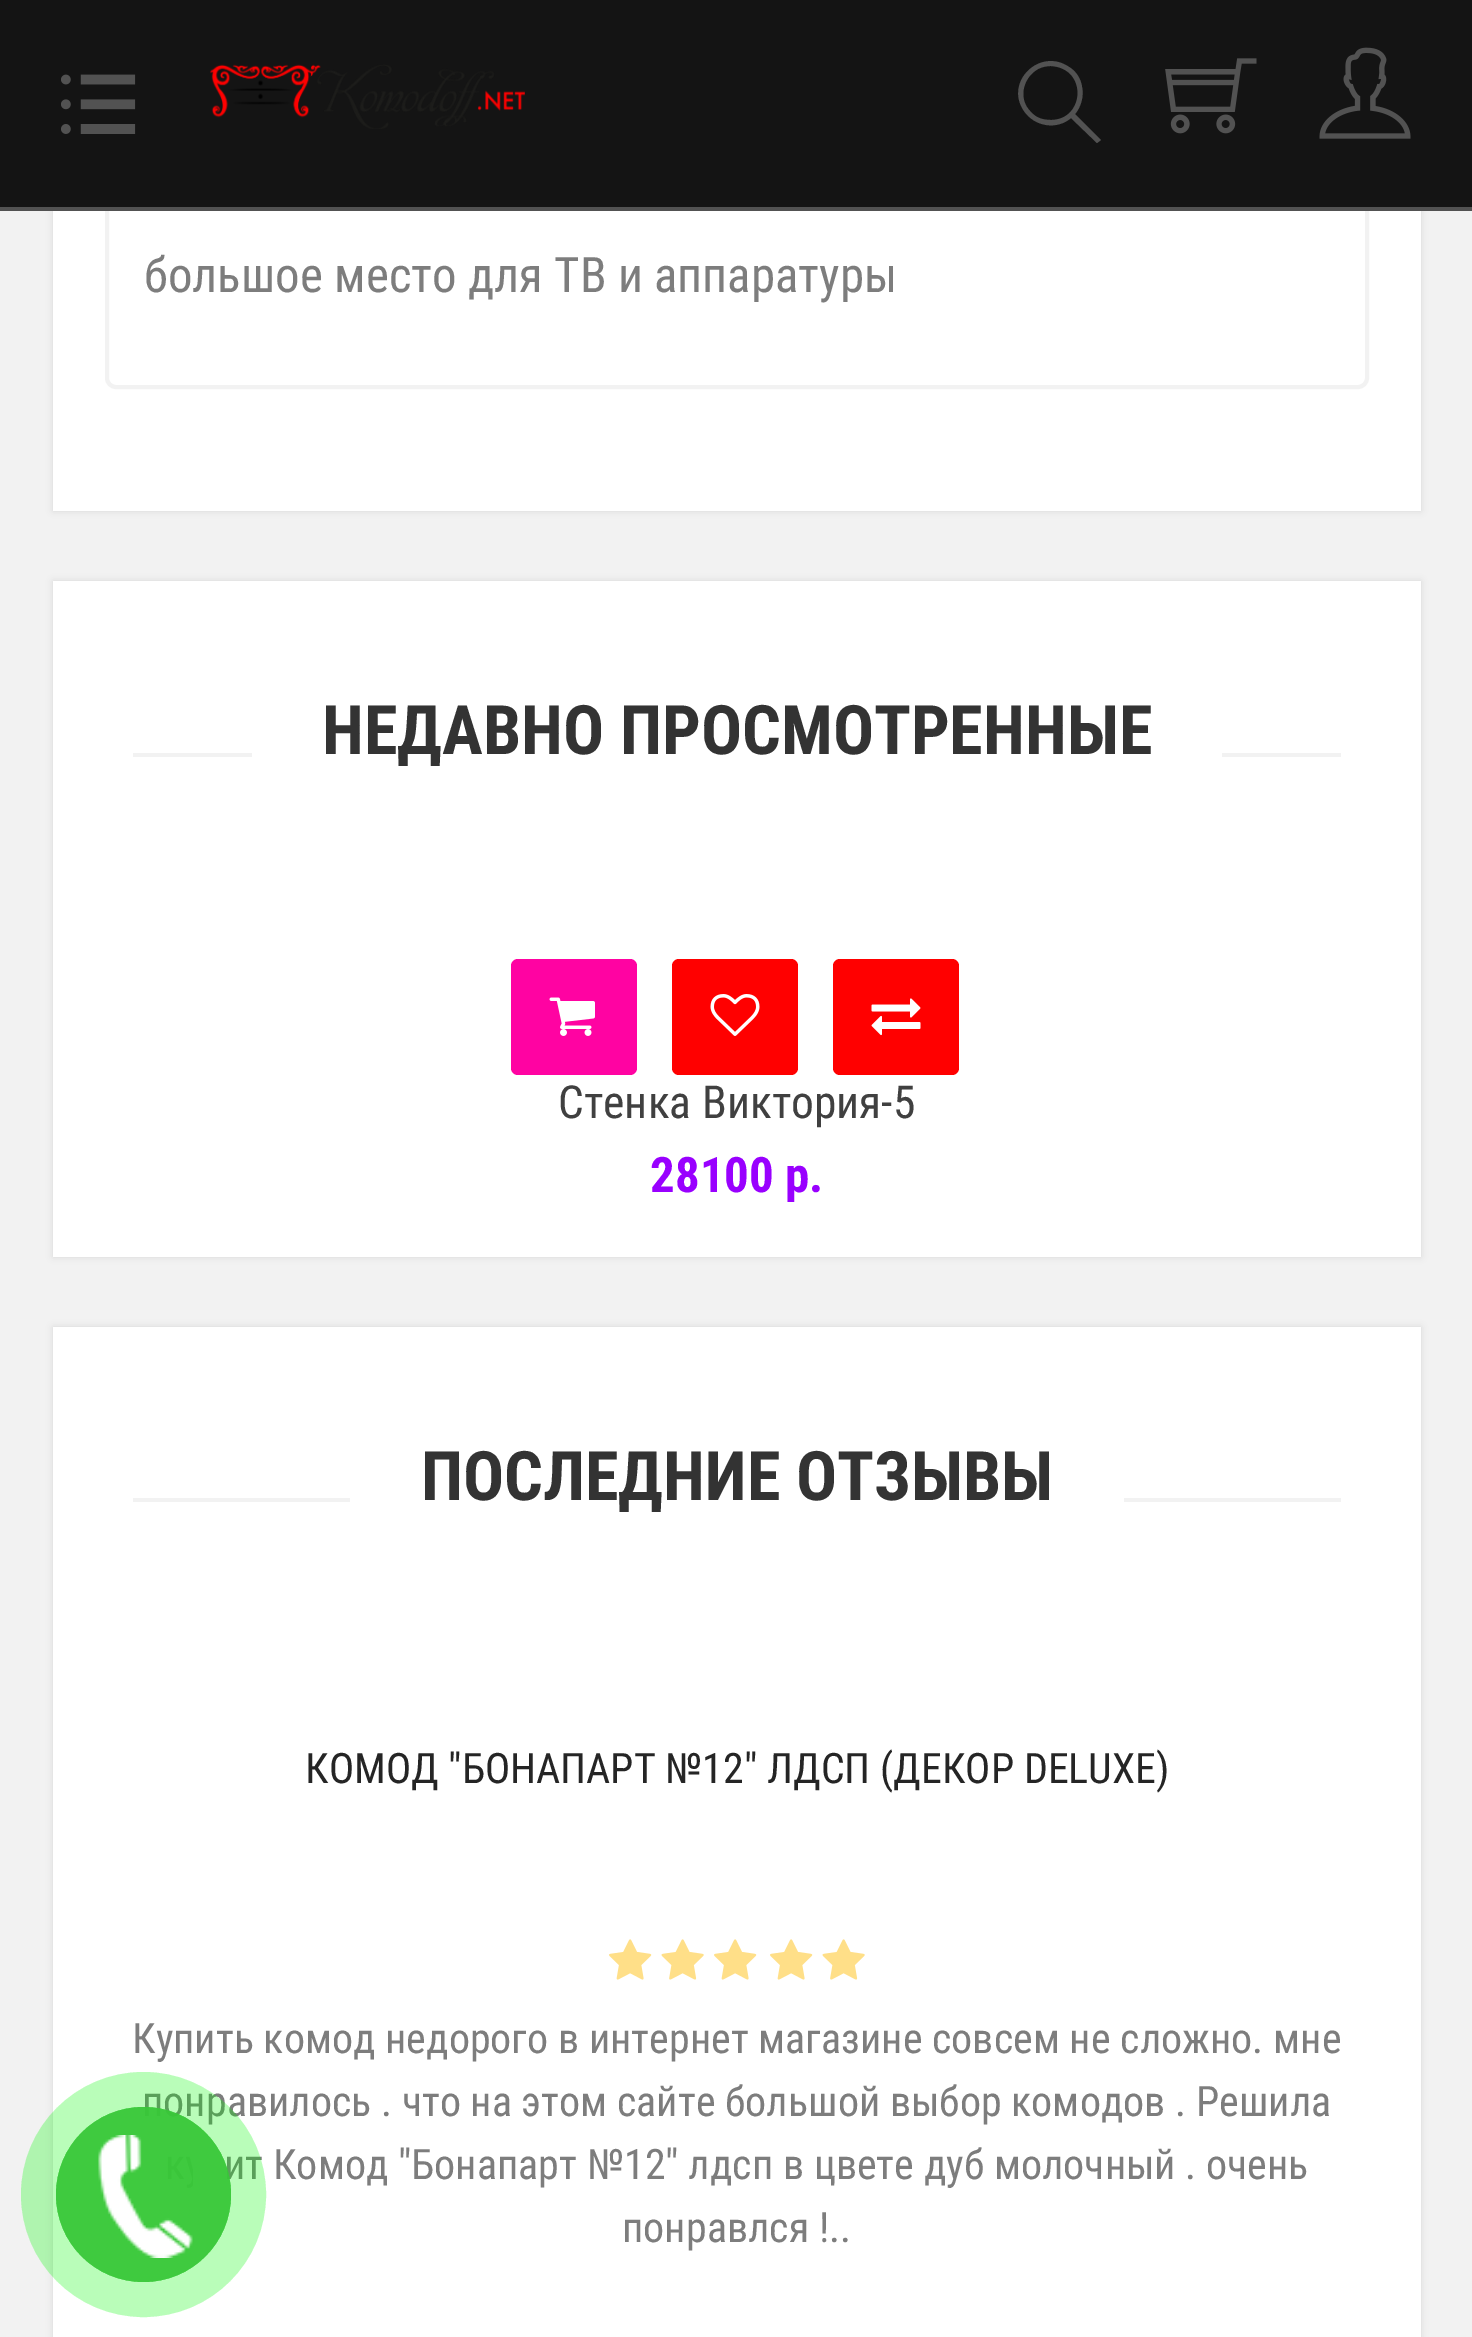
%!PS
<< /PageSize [1472 2337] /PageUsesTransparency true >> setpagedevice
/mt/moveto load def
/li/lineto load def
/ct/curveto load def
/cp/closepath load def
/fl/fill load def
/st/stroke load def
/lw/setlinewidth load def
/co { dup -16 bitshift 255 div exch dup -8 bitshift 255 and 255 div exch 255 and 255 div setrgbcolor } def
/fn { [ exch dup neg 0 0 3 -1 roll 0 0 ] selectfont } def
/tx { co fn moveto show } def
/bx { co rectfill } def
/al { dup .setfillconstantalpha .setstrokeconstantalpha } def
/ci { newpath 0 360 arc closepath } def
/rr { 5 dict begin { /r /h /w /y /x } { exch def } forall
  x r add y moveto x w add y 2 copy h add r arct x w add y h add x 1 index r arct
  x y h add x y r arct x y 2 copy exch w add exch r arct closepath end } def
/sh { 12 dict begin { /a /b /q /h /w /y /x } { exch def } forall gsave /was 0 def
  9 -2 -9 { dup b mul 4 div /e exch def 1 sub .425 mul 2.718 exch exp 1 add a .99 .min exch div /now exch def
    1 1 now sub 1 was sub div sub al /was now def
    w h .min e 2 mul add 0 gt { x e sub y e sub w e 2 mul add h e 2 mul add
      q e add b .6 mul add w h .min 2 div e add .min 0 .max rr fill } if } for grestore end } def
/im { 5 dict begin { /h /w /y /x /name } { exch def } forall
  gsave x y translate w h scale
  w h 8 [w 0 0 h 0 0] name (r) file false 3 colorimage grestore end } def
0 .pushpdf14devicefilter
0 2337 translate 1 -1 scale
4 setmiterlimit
0 0 1472 2337 16#F2F2F2 bx
16#000000 co
53 -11 1368 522 0 3.5 .1 sh
53 211 1368 300 16#FFFFFF bx
16#F2F2F2 co
4 lw
107 -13 mt 1358 -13 li 1363 -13 1367 -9 1367 -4 ct 1367 378 li 1367 383 1363 387 1358 387 ct 116 387 li 111 387 107 383 107 378 ct cp st
0 0 1472 207 16#141414 bx
0 207 1472 4 16#525252 bx
(media/1.raw) 61 74 75 60 im
(media/2.raw) 210 64 315 65 im
1101 140 mt 1075 114 li 1081 107 1084 96 1082 87 ct 1081 79 1076 71 1069 67 ct 1040 47 1004 82 1024 111 ct 1035 127 1057 130 1071 118 ct 1097 143 li cp 1051 120 mt 1043 120 1036 118 1031 112 ct 1018 100 1022 78 1038 69 ct 1042 67 1046 66 1051 66 ct 1088 68 1085 120 1051 120 ct cp fl
(media/3.raw) 1165 58 92 76 im
(media/4.raw) 1319 47 92 92 im
16#000000 co
53 581 1368 676 0 3.5 .1 sh
53 581 1368 676 16#FFFFFF bx
133 753 1208 4 16#F2F2F2 bx
252 753 970 4 16#FFFFFF bx
16#FF03A2 co
511 959 126 116 7 rr fl
(media/5.raw) 549 997 46 39 im
16#FF0000 co
672 959 126 116 7 rr fl
(media/6.raw) 710 994 50 42 im
833 959 126 116 7 rr fl
(media/7.raw) 871 998 50 38 im
16#000000 co
53 1327 1368 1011 0 3.5 .1 sh
53 1327 1368 1010 16#FFFFFF bx
133 1498 1208 4 16#F2F2F2 bx
350 1498 774 4 16#FFFFFF bx
(media/8.raw) 609 1939 43 41 im
(media/9.raw) 661 1939 43 41 im
(media/8.raw) 714 1939 43 41 im
(media/8.raw) 770 1939 43 41 im
(media/9.raw) 822 1939 43 41 im
(большое место для ТВ и аппаратуры) 144 292 /RobotoCondensed-Regular 49 16#7D7D7D tx
(НЕДАВНО ПРОСМОТРЕННЫЕ) 322 754 /RobotoCondensed-Bold 68.25 16#333333 tx
(Стенка Виктория-5) 558 1118 /RobotoCondensed-Regular 45.5 16#404040 tx
(28100 р.) 650 1192 /RobotoCondensed-Bold 49 16#9900FF tx
(ПОСЛЕДНИЕ ОТЗЫВЫ) 421 1500 /RobotoCondensed-Bold 68.25 16#333333 tx
(КОМОД "БОНАПАРТ №12" ЛДСП \(ДЕКОР DELUXE\)) 305 1783 /RobotoCondensed-Regular 42 16#252525 tx
(Купить комод недорого в интернет магазине совсем не сложно. мне) 132 2053 /RobotoCondensed-Regular 42 16#7D7D7D tx
(понравилось . что на этом сайте большой выбор комодов . Решила) 142 2116 /RobotoCondensed-Regular 42 16#7D7D7D tx
(ит Комод "Бонапарт №12" лдсп в цвете дуб молочный . очень) 224 2179 /RobotoCondensed-Regular 42 16#7D7D7D tx
(понравлся !..) 622 2242 /RobotoCondensed-Regular 42 16#7D7D7D tx
0.15 al
16#00F800 co
35 lw
143.5 2194.5 105 ci st
0.8 al
16#37C837 co
143.5 2194.5 87.5 ci fl
1 al
(media/10.raw) 98 2135 95 123 im
0.15 al
16#00F800 co
143.5 2194.5 105 ci st
0.8 al
16#37C837 co
143.5 2194.5 87.5 ci fl
1 al
(media/11.raw) 98 2135 95 123 im
.poppdf14devicefilter showpage
